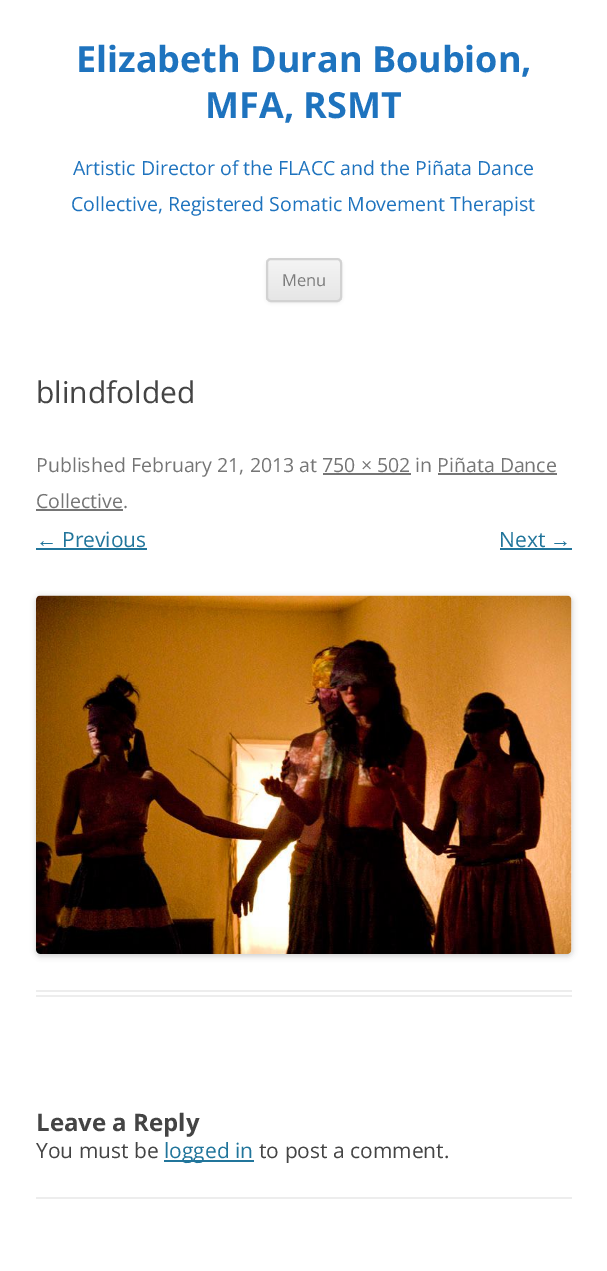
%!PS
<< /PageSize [607 1271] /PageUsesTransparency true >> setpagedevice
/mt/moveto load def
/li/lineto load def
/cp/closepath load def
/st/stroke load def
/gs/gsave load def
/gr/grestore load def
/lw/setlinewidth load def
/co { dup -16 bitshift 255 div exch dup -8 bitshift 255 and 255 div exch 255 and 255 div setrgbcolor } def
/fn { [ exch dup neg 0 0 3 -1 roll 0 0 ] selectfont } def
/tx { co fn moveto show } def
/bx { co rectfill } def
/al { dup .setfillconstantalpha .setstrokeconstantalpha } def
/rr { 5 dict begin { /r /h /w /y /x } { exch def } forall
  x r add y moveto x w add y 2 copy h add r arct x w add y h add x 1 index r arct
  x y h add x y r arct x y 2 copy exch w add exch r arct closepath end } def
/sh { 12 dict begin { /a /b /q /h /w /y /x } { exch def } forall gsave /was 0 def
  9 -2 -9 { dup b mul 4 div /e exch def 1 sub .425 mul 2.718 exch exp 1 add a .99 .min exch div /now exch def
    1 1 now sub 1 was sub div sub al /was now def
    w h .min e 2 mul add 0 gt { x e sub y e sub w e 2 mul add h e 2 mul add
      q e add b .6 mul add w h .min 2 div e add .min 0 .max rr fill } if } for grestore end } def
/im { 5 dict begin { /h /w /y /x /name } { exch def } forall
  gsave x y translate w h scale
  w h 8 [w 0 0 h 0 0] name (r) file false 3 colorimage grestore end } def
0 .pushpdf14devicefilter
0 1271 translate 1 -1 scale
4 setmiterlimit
0 0 607 1271 16#FFFFFF bx
16#404040 co
266 260 76 43 5 1.5 .1 sh
gs
266 258 76 44 5 rr clip newpath
gs 266 260 mt 342 260 li 342 300 li 266 300 li cp clip newpath
<< /ShadingType 2 /ColorSpace /DeviceRGB /Coords [304 260 304 300] /Extend [true true] /Function << /FunctionType 2 /Domain [0 1] /C0 [.957 .957 .957] /C1 [.902 .902 .902] /N 1 >> >> shfill gr
gr
16#D2D2D2 co
2 lw
267 259 74 42 4 rr st
36 990 536 2 16#EDEDED bx
36 995 536 2 16#EDEDED bx
323 473 88 2 16#757575 bx
438 473 119 2 16#757575 bx
36 509 87 2 16#757575 bx
36 548 111 2 16#21759B bx
500 548 72 2 16#21759B bx
16#000000 co
36 597 536 359 5 3 .2 sh
(media/1.raw) 36 595 536 359 im
164 1160 90 2 16#21759B bx
36 1197 536 2 16#EDEDED bx
(Elizabeth Duran Boubion,) 76 72 /OpenSans-Bold 36 16#1E73BE tx
(MFA, RSMT) 205 118 /OpenSans-Bold 36 16#1E73BE tx
(Artistic Director of the FLACC and the Piñata Dance) 73 175 /OpenSans-Regular 19.5 16#1E73BE tx
(Collective, Registered Somatic Movement Therapist) 71 211 /OpenSans-Regular 19.5 16#1E73BE tx
(Menu) 282 286 /OpenSans-Regular 16.5 16#7C7C7C tx
(blindfolded) 36 403 /OpenSans-Regular 30 16#444444 tx
(Published February 21, 2013 at 750 × 502 in Piñata Dance) 36 472 /OpenSans-Regular 19.5 16#757575 tx
(Collective.) 36 508 /OpenSans-Regular 19.5 16#757575 tx
(←) 36 547 /LiberationSans-Regular 21 16#21759B tx
(Previous) 62 547 /OpenSans-Regular 21 16#21759B tx
(Next) 499 547 /OpenSans-Regular 21 16#21759B tx
(→) 550 547 /LiberationSans-Regular 21 16#21759B tx
(Leave a Reply) 36 1131 /OpenSans-Bold 24 16#444444 tx
(You must be) 36 1158 /OpenSans-Regular 21 16#444444 tx
(logged in) 164 1158 /OpenSans-Regular 21 16#21759B tx
(to post a comment.) 259 1158 /OpenSans-Regular 21 16#444444 tx
.poppdf14devicefilter showpage
